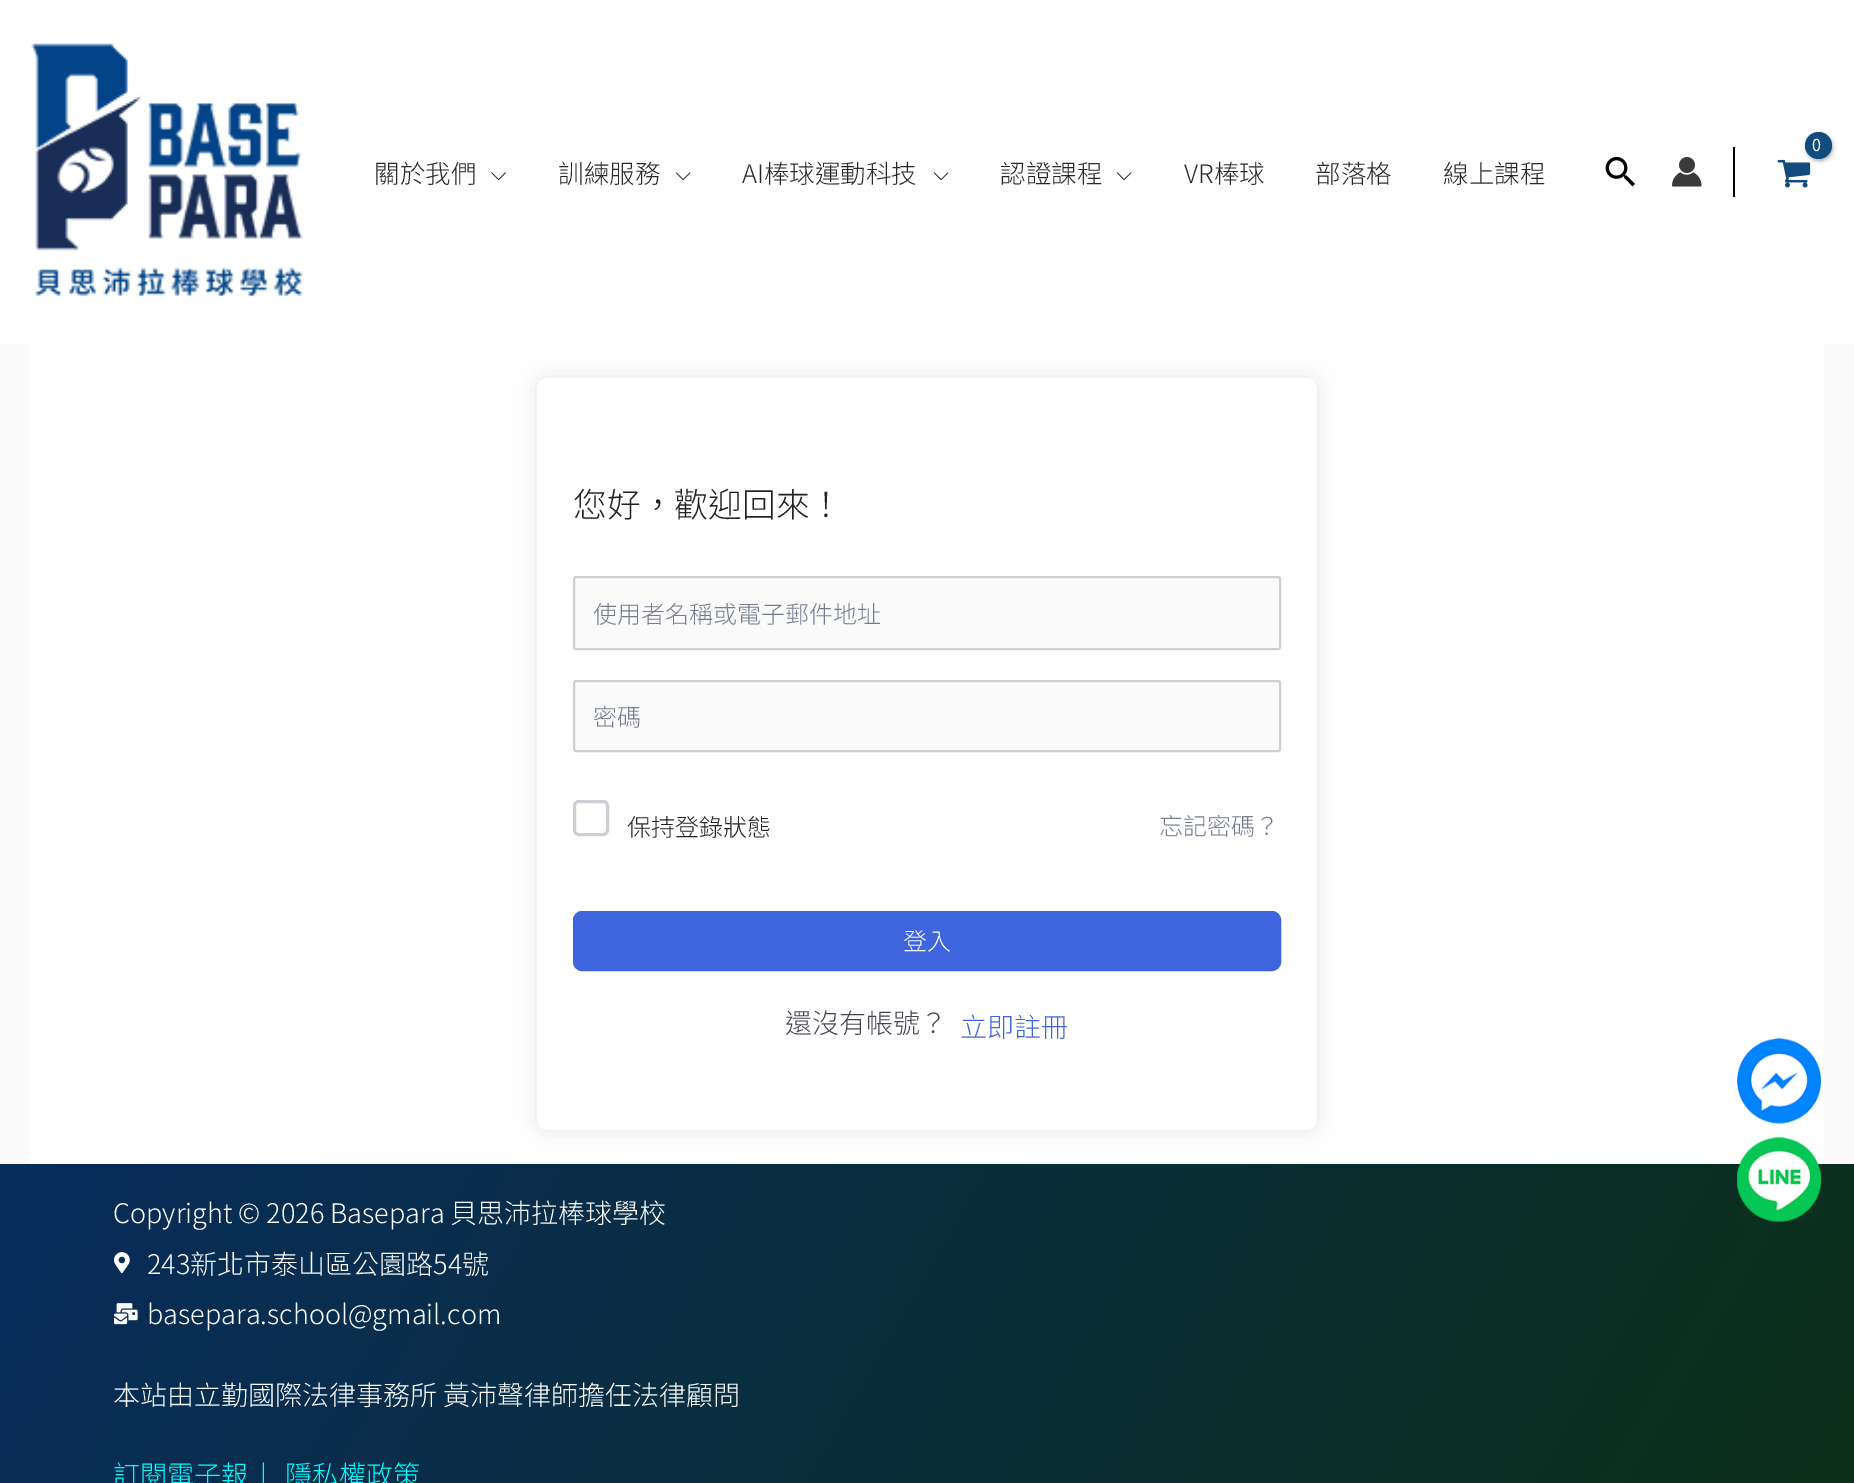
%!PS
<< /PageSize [1854 1483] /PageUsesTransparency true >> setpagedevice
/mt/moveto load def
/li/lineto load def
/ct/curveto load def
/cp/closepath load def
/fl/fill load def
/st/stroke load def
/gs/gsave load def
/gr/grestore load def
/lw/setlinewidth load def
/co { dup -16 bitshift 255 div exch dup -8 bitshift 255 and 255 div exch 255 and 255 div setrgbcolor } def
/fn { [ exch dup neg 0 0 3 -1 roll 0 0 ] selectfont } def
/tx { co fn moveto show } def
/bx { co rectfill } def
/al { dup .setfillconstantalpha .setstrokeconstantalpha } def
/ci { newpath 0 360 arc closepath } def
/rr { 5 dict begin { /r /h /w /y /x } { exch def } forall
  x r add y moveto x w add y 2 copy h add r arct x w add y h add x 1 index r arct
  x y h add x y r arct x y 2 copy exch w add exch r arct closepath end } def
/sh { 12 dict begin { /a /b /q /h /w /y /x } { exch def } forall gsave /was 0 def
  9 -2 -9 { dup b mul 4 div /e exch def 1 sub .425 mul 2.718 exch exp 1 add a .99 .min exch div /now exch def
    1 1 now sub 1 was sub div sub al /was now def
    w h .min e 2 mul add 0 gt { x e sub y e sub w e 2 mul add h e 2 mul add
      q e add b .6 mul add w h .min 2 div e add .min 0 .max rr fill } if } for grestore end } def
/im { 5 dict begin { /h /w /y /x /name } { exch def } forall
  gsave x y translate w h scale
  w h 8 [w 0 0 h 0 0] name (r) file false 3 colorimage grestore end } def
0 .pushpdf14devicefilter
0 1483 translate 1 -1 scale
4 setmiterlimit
0 0 1854 1483 16#FAFAFA bx
0 0 1854 344 16#FFFFFF bx
(media/1.raw) 31 43 272 254 im
(media/2.raw) 1777 159 34 29 im
16#000000 co
1806 134 27 27 13.5 2 .3 sh
16#124B7D co
1818.5 145.5 13.5 ci fl
(media/3.raw) 491 172 15 9 im
(media/4.raw) 675 172 16 9 im
(media/4.raw) 933 172 16 9 im
(media/4.raw) 1116 172 16 9 im
(media/5.raw) 1605 156 30 31 im
(media/6.raw) 1672 157 30 30 im
1733 147 2 50 16#000000 bx
30 344 1794 820 16#FFFFFF bx
gs
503 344 mt 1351 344 li 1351 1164 li 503 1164 li cp 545 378 mt 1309 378 li 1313.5 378 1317 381.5 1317 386 ct 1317 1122 li 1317 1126.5 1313.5 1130 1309 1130 ct 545 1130 li 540.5 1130 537 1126.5 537 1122 ct 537 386 li 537 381.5 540.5 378 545 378 ct cp eoclip newpath
16#000000 co
537 378 780 752 8 11 .1 sh
gr
16#FAFAFA co
574 577 706 72 2 rr gs fl gr
16#CDCFD5 co
2 lw
st
16#FAFAFA co
574 681 706 70 2 rr gs fl gr
16#CDCFD5 co
st
3 lw
574.5 801.5 33 33 4.5 rr st
16#3E64DE co
574 912 706 58 8 rr gs fl gr
2 lw
st
gs 0 1164 mt 1854 1164 li 1854 1483 li 0 1483 li cp clip newpath
<< /ShadingType 2 /ColorSpace /DeviceRGB /Coords [149 906 1705 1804] /Extend [true true] /Function << /FunctionType 2 /Domain [0 1] /C0 [.031 .173 .365] /C1 [.043 .188 .09] /N 1 >> >> shfill gr
(media/7.raw) 1737 1038 84 86 im
(media/8.raw) 1737 1136 84 86 im
(media/9.raw) 114 1252 16 22 im
(media/10.raw) 114 1303 24 22 im
/NotoSansTC-Bold 16 fn
16#FFFFFF co
1812 151 mt -1 0 (0) ashow
(關於我們) 374 183 /NotoSansTC-Thin 25.5 16#292929 tx
(訓練服務) 558 183 /NotoSansTC-Thin 25.5 16#292929 tx
(AI棒球運動科技) 742 183 /NotoSansTC-Thin 25.5 16#292929 tx
(認證課程) 1000 183 /NotoSansTC-Thin 25.5 16#292929 tx
(VR棒球) 1184 183 /NotoSansTC-Thin 25.5 16#292929 tx
(部落格) 1315 183 /NotoSansTC-Thin 25.5 16#292929 tx
(線上課程) 1443 183 /NotoSansTC-Thin 25.5 16#292929 tx
(您好，歡迎回來！) 573 517 /NotoSansTC-Thin 33.75 16#212327 tx
(使用者名稱或電子郵件地址) 593 623 /NotoSansTC-Thin 24 16#757C8E tx
(密碼) 593 726 /NotoSansTC-Thin 24 16#757C8E tx
(保持登錄狀態) 627 836 /NotoSansTC-Thin 24 16#212327 tx
(忘記密碼？) 1159 835 /NotoSansTC-Thin 24 16#757C8E tx
(登入) 903 950 /NotoSansTC-Thin 24 16#FFFFFF tx
(還沒有帳號？) 785 1033 /NotoSansTC-Thin 27 16#41454F tx
(立即註冊) 960 1037 /NotoSansTC-Thin 27 16#3E64DE tx
(Copyright © 2026 Basepara 貝思沛拉棒球學校) 113 1223 /NotoSansTC-Thin 27 16#FFFFFF tx
(243新北市泰山區公園路54號) 147 1274 /NotoSansTC-Thin 27 16#FFFFFF tx
(basepara.school@gmail.com) 147 1324 /NotoSansTC-Thin 27 16#FFFFFF tx
(本站由立勤國際法律事務所 黃沛聲律師擔任法律顧問) 113 1405 /NotoSansTC-Thin 27 16#FFFFFF tx
(訂閱電子報) 113 1485 /NotoSansTC-Thin 27 16#00FFFF tx
(|) 260 1485 /NotoSansTC-Thin 27 16#00FFFF tx
(隱私權政策) 285 1485 /NotoSansTC-Thin 27 16#00FFFF tx
.poppdf14devicefilter showpage
